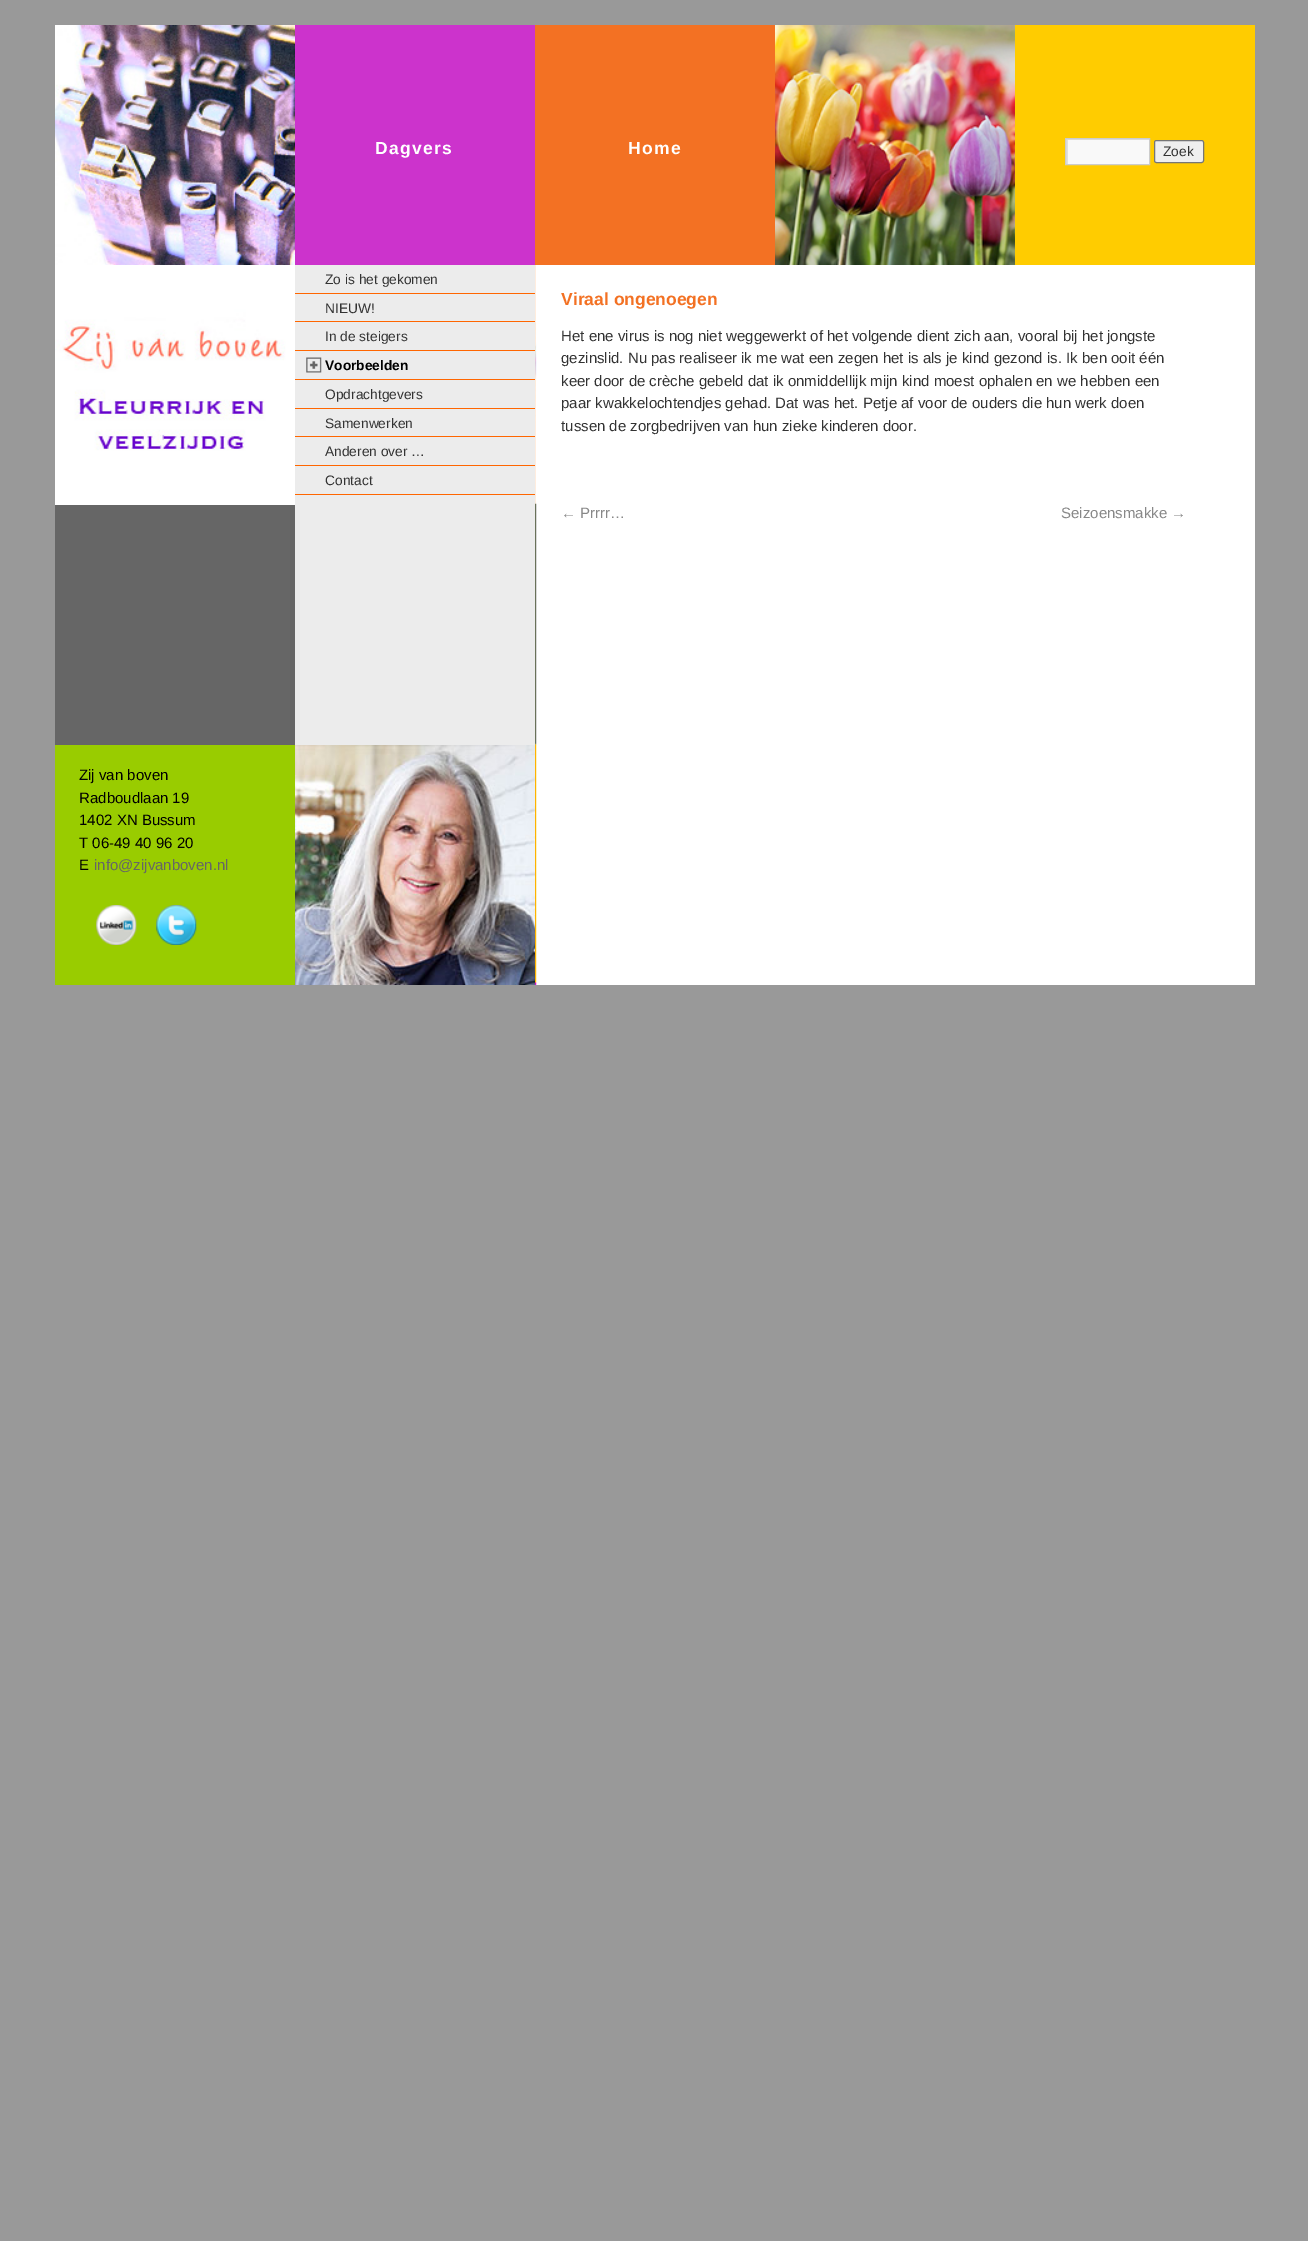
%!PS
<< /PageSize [1308 2241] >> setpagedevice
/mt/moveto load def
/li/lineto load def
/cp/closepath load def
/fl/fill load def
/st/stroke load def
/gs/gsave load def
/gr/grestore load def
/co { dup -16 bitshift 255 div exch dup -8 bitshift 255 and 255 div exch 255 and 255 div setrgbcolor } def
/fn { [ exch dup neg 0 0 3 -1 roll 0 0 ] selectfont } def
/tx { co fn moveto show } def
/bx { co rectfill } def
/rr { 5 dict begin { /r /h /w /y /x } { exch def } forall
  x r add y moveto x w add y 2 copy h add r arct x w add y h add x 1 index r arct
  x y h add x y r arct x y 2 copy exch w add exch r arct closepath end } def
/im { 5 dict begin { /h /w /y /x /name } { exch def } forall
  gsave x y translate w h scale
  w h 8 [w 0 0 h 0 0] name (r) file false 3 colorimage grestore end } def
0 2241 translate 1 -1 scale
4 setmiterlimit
0 0 1308 2241 16#999999 bx
536 265 719 720 16#FFFFFF bx
(media/1.raw) 55 25 240 240 im
295 25 240 240 16#CC33CC bx
535 25 240 240 16#F37123 bx
(media/2.raw) 775 25 240 240 im
1015 25 240 240 16#FFCC00 bx
1068 140 81 24 16#F9F9F9 bx
gs
1066 139 83 25 rectclip
16#E0E0E0 co
942 15 mt 1272 15 li 1272 288 li 942 288 li cp 1068 140 mt 1150 140 li 1150 165 li 1068 165 li cp eofill
gr
16#CCCCCC co
1065.5 138.5 84 26 rectstroke
16#EFEFEF co
1154.5 140.5 49 22 2 rr gs fl gr
16#767676 co
st
(media/3.raw) 535 265 2 720 im
(media/4.raw) 55 265 240 240 im
295 265 240 480 16#ECECEC bx
295 293 240 1 16#FF6600 bx
295 321 240 1 16#FF6600 bx
295 350 240 1 16#FF6600 bx
(media/5.raw) 306 357 16 16 im
295 379 240 1 16#FF6600 bx
295 408 240 1 16#FF6600 bx
295 436 240 1 16#FF6600 bx
295 465 240 1 16#FF6600 bx
295 494 240 1 16#FF6600 bx
55 505 240 240 16#666666 bx
55 745 240 240 16#99CC00 bx
(media/6.raw) 96 905 41 40 im
(media/7.raw) 156 905 41 40 im
(media/8.raw) 295 745 240 240 im
/LiberationSans-Bold 17.5 fn
16#FFFFFF co
375 154 mt 1.25 0 (Dagvers) ashow
628 154 mt 1.25 0 (Home) ashow
(Zoek) 1163 156 /LiberationSans-Regular 13.75 16#333333 tx
(Zo is het gekomen) 325 284 /LiberationSans-Regular 13.75 16#333333 tx
(NIEUW!) 325 313 /LiberationSans-Regular 13.75 16#333333 tx
(In de steigers) 325 341 /LiberationSans-Regular 13.75 16#333333 tx
(Voorbeelden) 325 370 /LiberationSans-Bold 13.75 16#000000 tx
(Opdrachtgevers) 325 399 /LiberationSans-Regular 13.75 16#333333 tx
(Samenwerken) 325 428 /LiberationSans-Regular 13.75 16#333333 tx
(Anderen over …) 325 456 /LiberationSans-Regular 13.75 16#333333 tx
(Contact) 325 485 /LiberationSans-Regular 13.75 16#333333 tx
(Zij van boven) 79 780 /LiberationSans-Regular 15 16#000000 tx
(Radboudlaan 19) 79 803 /LiberationSans-Regular 15 16#000000 tx
(1402 XN Bussum) 79 825 /LiberationSans-Regular 15 16#000000 tx
(T 06-49 40 96 20) 79 848 /LiberationSans-Regular 15 16#000000 tx
(E) 79 870 /LiberationSans-Regular 15 16#000000 tx
(info@zijvanboven.nl) 94 870 /LiberationSans-Regular 15 16#666666 tx
(Viraal ongenoegen) 561 305 /LiberationSans-Bold 17.5 16#F37123 tx
(Het ene virus is nog niet weggewerkt of het volgende dient zich aan, vooral bij het jongste) 561 341 /LiberationSans-Regular 15 16#333333 tx
(gezinslid. Nu pas realiseer ik me wat een zegen het is als je kind gezond is. Ik ben ooit één) 561 363 /LiberationSans-Regular 15 16#333333 tx
(keer door de crèche gebeld dat ik onmiddellijk mijn kind moest ophalen en we hebben een) 561 386 /LiberationSans-Regular 15 16#333333 tx
(paar kwakkelochtendjes gehad. Dat was het. Petje af voor de ouders die hun werk doen) 561 408 /LiberationSans-Regular 15 16#333333 tx
(tussen de zorgbedrijven van hun zieke kinderen door.) 561 431 /LiberationSans-Regular 15 16#333333 tx
(← Prrrr…) 561 518 /LiberationSans-Regular 15 16#888888 tx
(Seizoensmakke →) 1061 518 /LiberationSans-Regular 15 16#888888 tx
showpage
